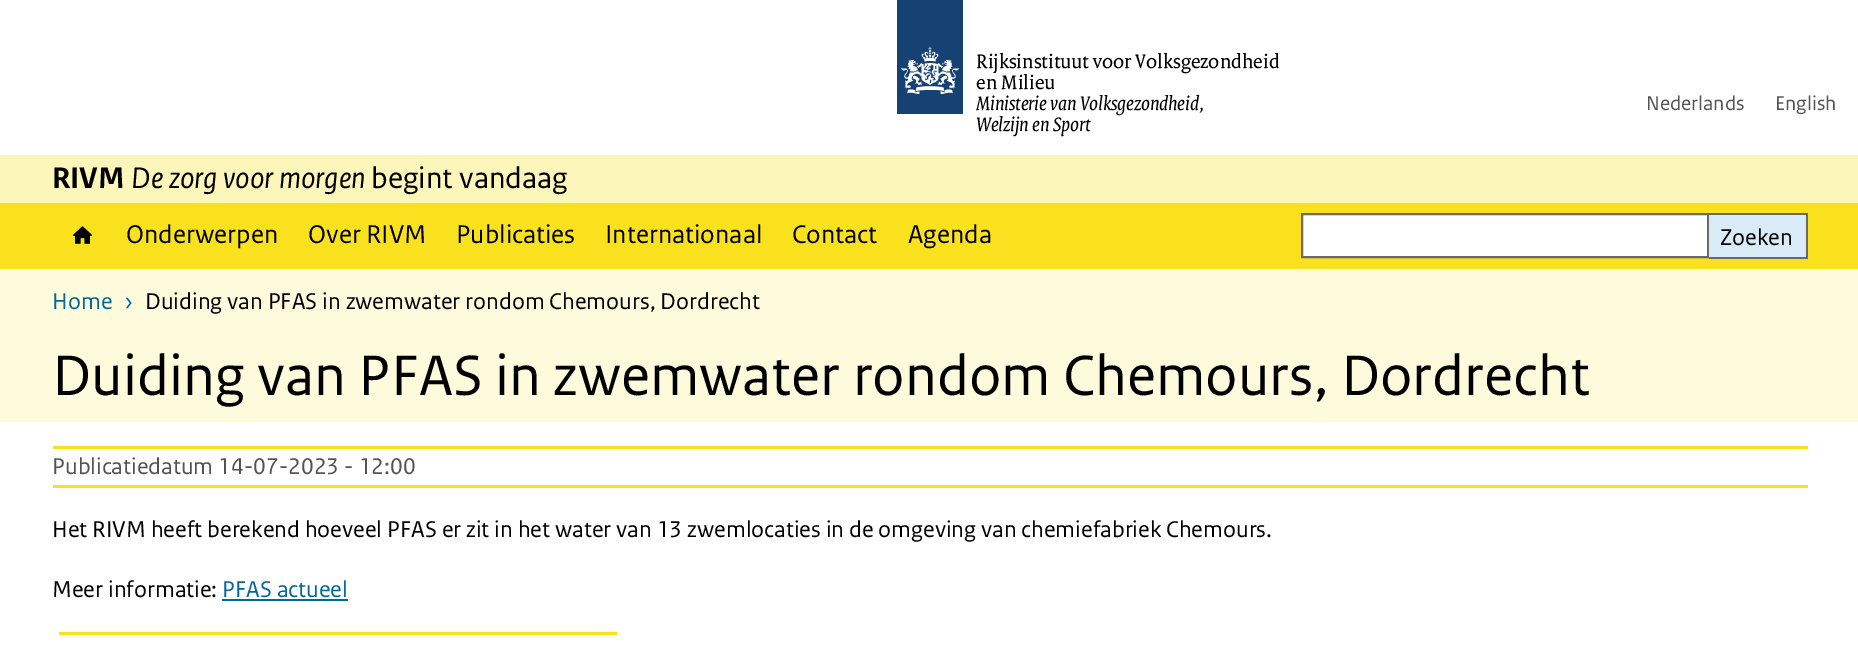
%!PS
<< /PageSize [1858 667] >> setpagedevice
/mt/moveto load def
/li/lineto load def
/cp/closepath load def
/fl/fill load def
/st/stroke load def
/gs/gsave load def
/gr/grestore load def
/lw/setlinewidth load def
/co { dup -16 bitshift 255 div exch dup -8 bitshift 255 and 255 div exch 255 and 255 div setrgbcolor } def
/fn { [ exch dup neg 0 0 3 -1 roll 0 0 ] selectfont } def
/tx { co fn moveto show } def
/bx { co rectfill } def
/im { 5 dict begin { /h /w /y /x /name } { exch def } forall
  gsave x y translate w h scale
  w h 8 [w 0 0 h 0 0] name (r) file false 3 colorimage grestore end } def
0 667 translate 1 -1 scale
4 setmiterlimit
0 0 1858 667 16#FFFFFF bx
(media/1.raw) 897 0 66 114 im
0 155 1858 48 16#FDF6BB bx
0 203 1858 66 16#F9E11E bx
(media/2.raw) 73 226 19 18 im
16#FFFFFF co
1302 214 mt 1708 214 li 1708 257 li 1302 257 li cp gs fl gr
16#696969 co
2 lw
st
1709 215 97 42 16#D9EBF7 bx
1709 213 99 2 16#696969 bx
1806 213 2 45 16#696969 bx
1709 257 99 2 16#696969 bx
0 269 1858 153 16#FEFBDD bx
53 446 1755 3 16#F9E11E bx
53 485 1755 3 16#F9E11E bx
222 599 126 2 16#01689B bx
59 632 558 3 16#F9E11E bx
(Rijksinstituut voor Volksgezondheid) 976 68 /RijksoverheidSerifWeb-Regular 21 16#000000 tx
(en Milieu) 976 89 /RijksoverheidSerifWeb-Regular 21 16#000000 tx
(Ministerie van Volksgezondheid,) 976 110 /RijksoverheidSerifWeb-Italic 21 16#000000 tx
(Welzijn en Sport) 976 131 /RijksoverheidSerifWeb-Italic 21 16#000000 tx
(Nederlands) 1646 110 /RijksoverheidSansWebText-Regular 21 16#535353 tx
(English) 1775 110 /RijksoverheidSansWebText-Regular 21 16#535353 tx
(RIVM) 52 188 /RijksoverheidSansWebText-Bold 31.25 16#000000 tx
(De zorg voor morgen) 131 188 /RijksoverheidSansWebText-Italic 31.25 16#000000 tx
(begint vandaag) 371 188 /RijksoverheidSansWebText-Regular 31.25 16#000000 tx
(Onderwerpen) 126 243 /RijksoverheidSansWebText-Regular 27 16#000000 tx
(Over RIVM) 308 243 /RijksoverheidSansWebText-Regular 27 16#000000 tx
(Publicaties) 456 243 /RijksoverheidSansWebText-Regular 27 16#000000 tx
(Internationaal) 605 243 /RijksoverheidSansWebText-Regular 27 16#000000 tx
(Contact) 792 243 /RijksoverheidSansWebText-Regular 27 16#000000 tx
(Agenda) 908 243 /RijksoverheidSansWebText-Regular 27 16#000000 tx
(Zoeken) 1720 245 /RijksoverheidSansWebText-Regular 24 16#000000 tx
(Home) 52 309 /RijksoverheidSansWebText-Regular 24 16#01689B tx
(›) 124 309 /RijksoverheidSansWebText-Regular 24 16#01689B tx
(Duiding van PFAS in zwemwater rondom Chemours, Dordrecht) 145 309 /RijksoverheidSansWebText-Regular 24 16#000000 tx
(Duiding van PFAS in zwemwater rondom Chemours, Dordrecht) 52 395 /RijksoverheidSansWebText-Regular 60 16#000000 tx
(Publicatiedatum 14-07-2023 - 12:00) 52 474 /RijksoverheidSansWebText-Regular 24 16#535353 tx
(Het RIVM heeft berekend hoeveel PFAS er zit in het water van 13 zwemlocaties in de omgeving van chemiefabriek Chemours.) 52 537 /RijksoverheidSansWebText-Regular 24 16#000000 tx
(Meer informatie:) 52 597 /RijksoverheidSansWebText-Regular 24 16#000000 tx
(PFAS actueel) 222 597 /RijksoverheidSansWebText-Regular 24 16#01689B tx
showpage
